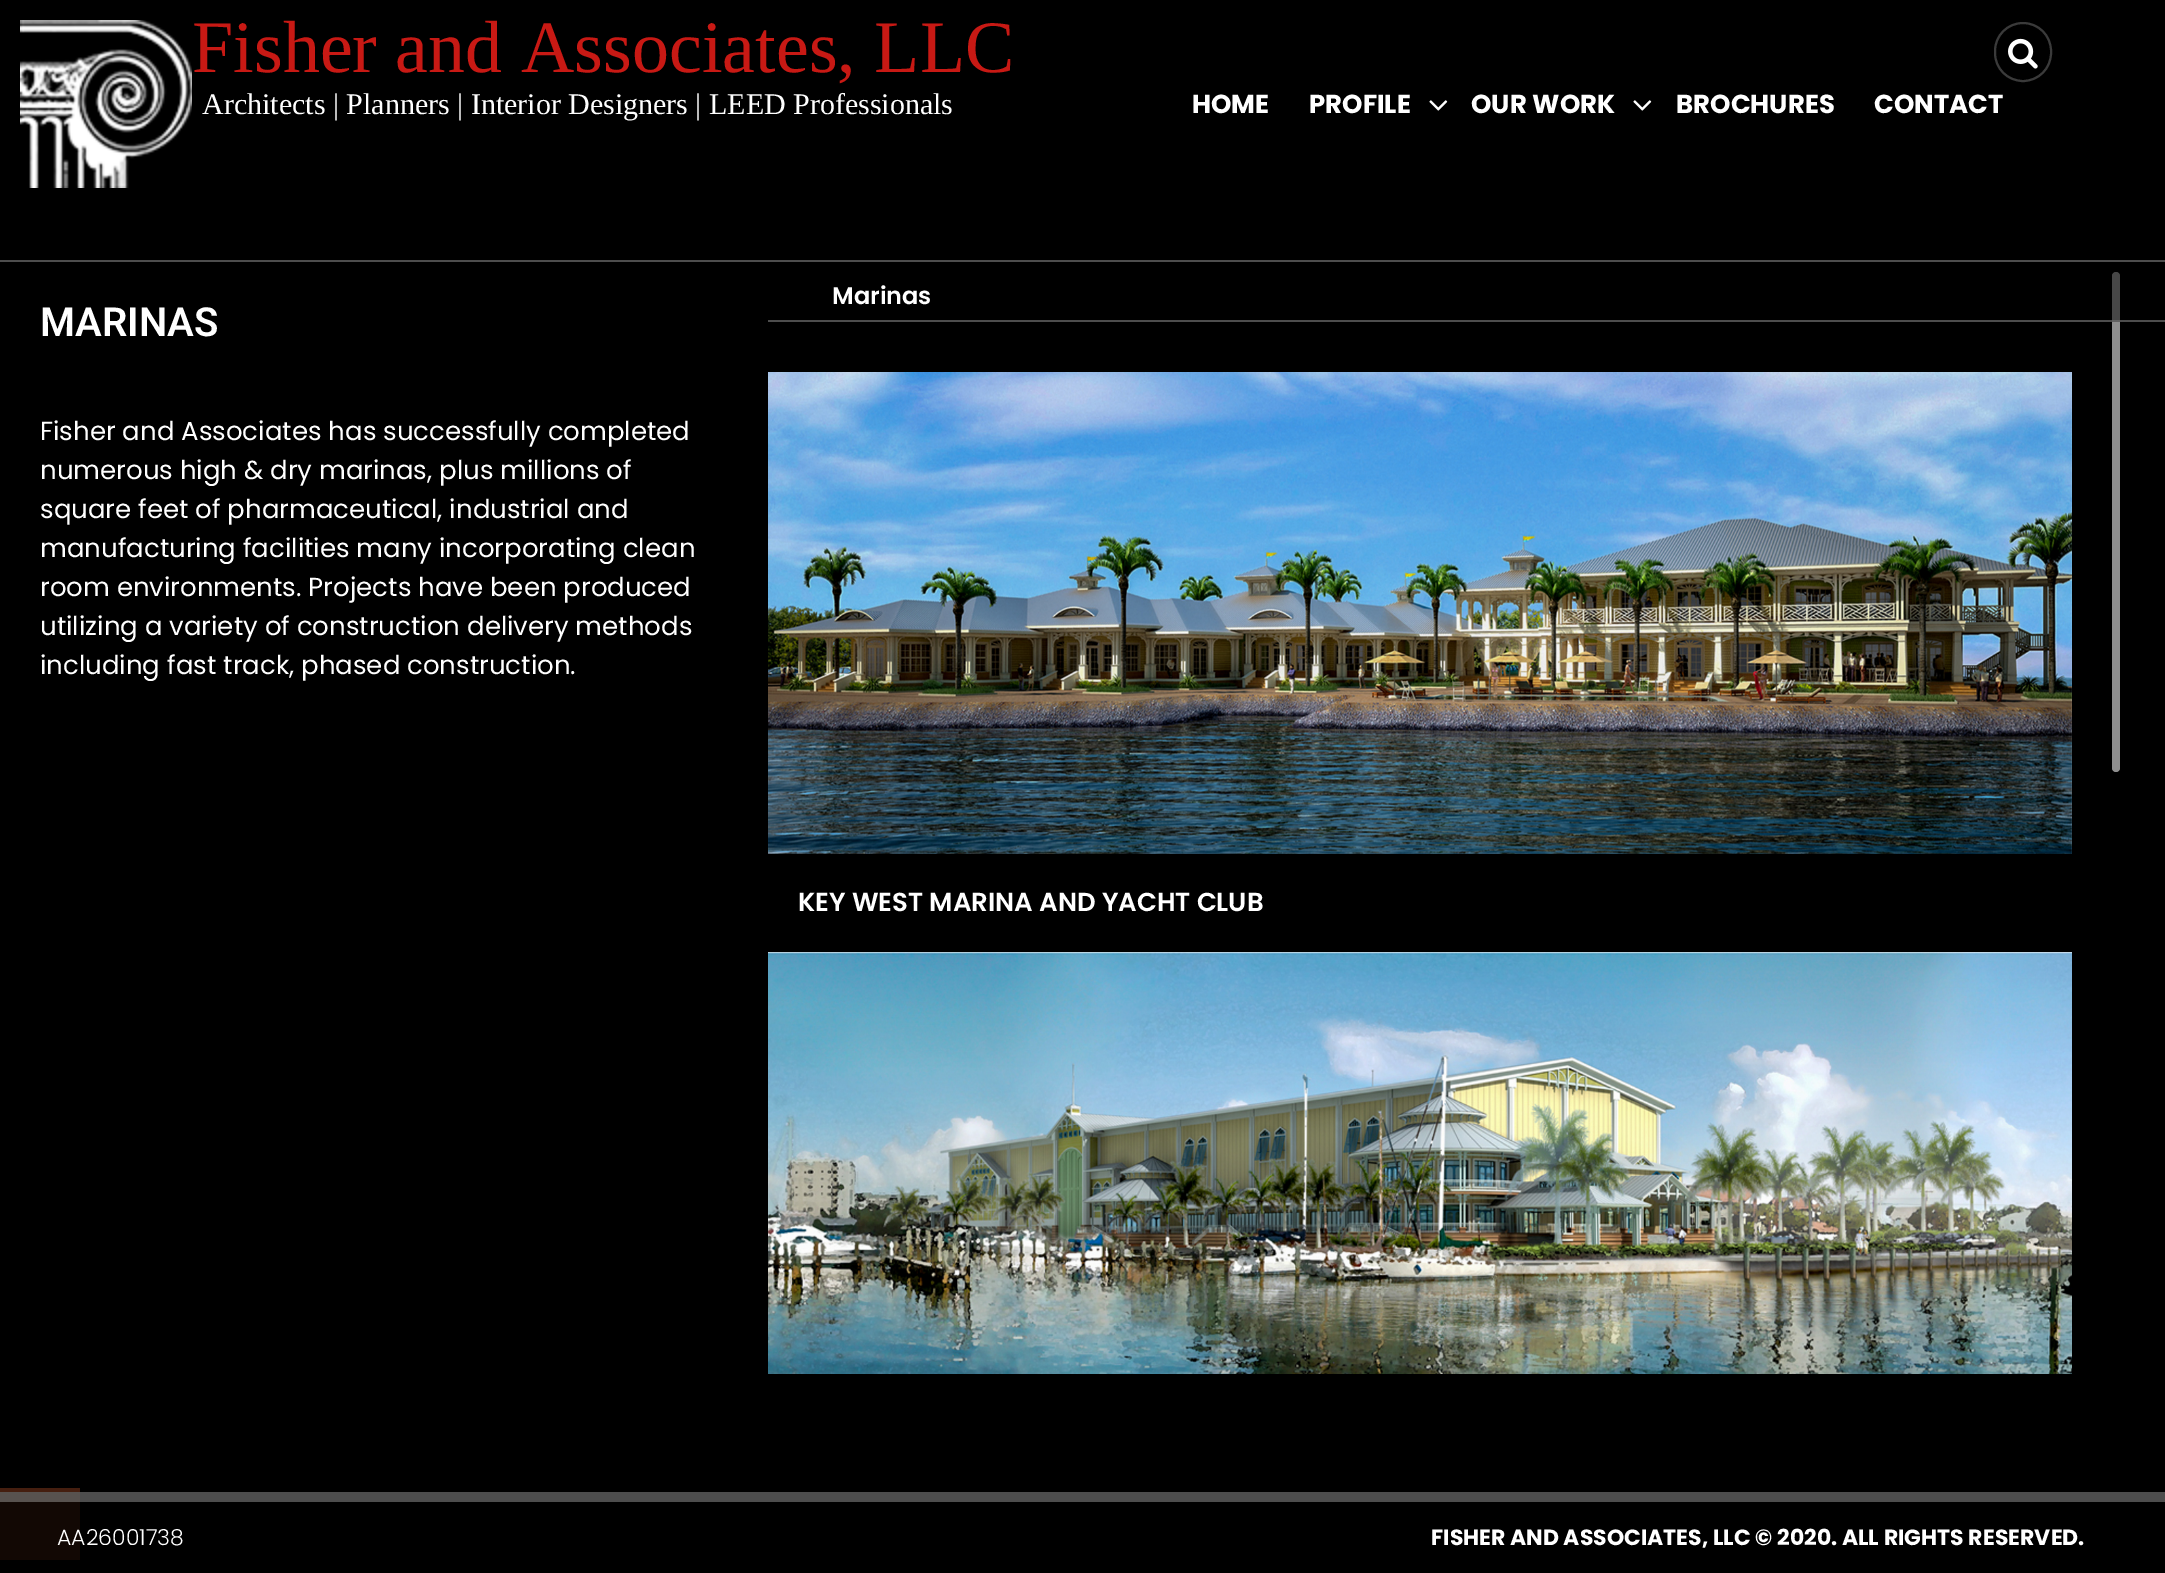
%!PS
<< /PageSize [2165 1573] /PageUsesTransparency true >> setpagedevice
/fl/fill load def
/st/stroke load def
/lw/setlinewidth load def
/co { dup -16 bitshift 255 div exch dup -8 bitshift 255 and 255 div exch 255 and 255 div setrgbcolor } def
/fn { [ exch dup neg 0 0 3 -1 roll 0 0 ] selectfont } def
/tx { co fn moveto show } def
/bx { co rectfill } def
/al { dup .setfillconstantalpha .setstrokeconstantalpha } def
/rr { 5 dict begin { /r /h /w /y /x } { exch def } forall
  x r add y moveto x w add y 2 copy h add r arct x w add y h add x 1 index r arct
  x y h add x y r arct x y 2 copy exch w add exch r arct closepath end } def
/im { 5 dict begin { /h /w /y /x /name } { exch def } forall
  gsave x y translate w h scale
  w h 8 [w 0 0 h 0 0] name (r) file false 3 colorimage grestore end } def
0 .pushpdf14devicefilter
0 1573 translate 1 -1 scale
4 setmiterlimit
0 0 2165 1573 16#000000 bx
80 1492 2085 10 16#4D4D4D bx
0 1488 80 4 16#451E0F bx
0 1502 80 58 16#120804 bx
0 1492 80 10 16#58524F bx
(media/1.raw) 20 20 172 168 im
16#3A3A3A co
2 lw
1995 23 56 58 28 rr st
(media/2.raw) 2008 38 30 31 im
(media/3.raw) 1429 100 19 11 im
(media/3.raw) 1633 100 19 11 im
0 260 2165 2 16#4D4D4D bx
16#8F8F8F co
2112 272 8 500 4 rr fl
0.5 al
2112 272 8 50 16#000000 bx
0.7 al
768 320 1397 2 16#6E6E6E bx
1 al
(media/4.raw) 768 372 1304 482 im
(media/5.raw) 768 952 1304 422 im
(Fisher and Associates, LLC) 192 72 /LiberationSerif-Regular 74 16#C81914 tx
(Architects | Planners | Interior Designers | LEED Professionals) 202 114 /LiberationSerif-Regular 30 16#FFFFFF tx
(HOME) 1192 113 /Poppins-Bold 26 16#FFFFFF tx
(PROFILE) 1309 113 /Poppins-Bold 26 16#FFFFFF tx
(OUR WORK) 1471 113 /Poppins-Bold 26 16#FFFFFF tx
(BROCHURES) 1676 113 /Poppins-Bold 26 16#FFFFFF tx
(CONTACT) 1874 113 /Poppins-Bold 26 16#FFFFFF tx
(MARINAS) 40 336 /Roboto-SemiBold 40 16#FFFFFF tx
(Fisher and Associates has successfully completed) 40 440 /Poppins-Regular 26 16#FFFFFF tx
(numerous high & dry marinas, plus millions of) 40 479 /Poppins-Regular 26 16#FFFFFF tx
(square feet of pharmaceutical, industrial and) 40 518 /Poppins-Regular 26 16#FFFFFF tx
(manufacturing facilities many incorporating clean) 40 557 /Poppins-Regular 26 16#FFFFFF tx
(room environments. Projects have been produced) 40 596 /Poppins-Regular 26 16#FFFFFF tx
(utilizing a variety of construction delivery methods) 40 635 /Poppins-Regular 26 16#FFFFFF tx
(including fast track, phased construction.) 40 674 /Poppins-Regular 26 16#FFFFFF tx
(Marinas) 832 304 /Poppins-SemiBold 24 16#FFFFFF tx
(KEY WEST MARINA AND YACHT CLUB) 798 911 /Poppins-SemiBold 26 16#FFFFFF tx
(AA26001738) 57 1545 /Poppins-Light 22 16#FFFFFF tx
(FISHER AND ASSOCIATES, LLC © 2020. ALL RIGHTS RESERVED.) 1431 1545 /Poppins-Bold 22 16#FFFFFF tx
.poppdf14devicefilter showpage
